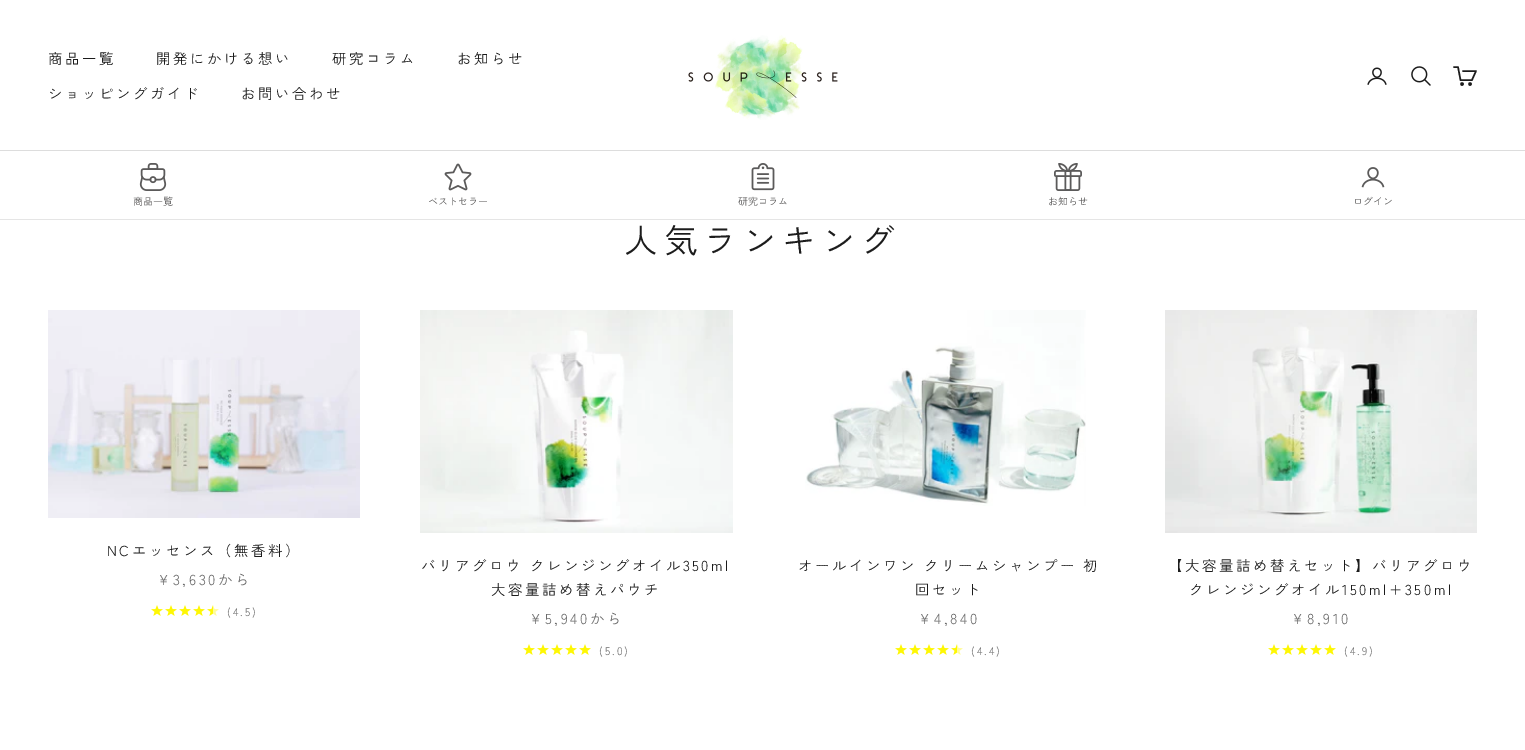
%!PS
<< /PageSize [1525 750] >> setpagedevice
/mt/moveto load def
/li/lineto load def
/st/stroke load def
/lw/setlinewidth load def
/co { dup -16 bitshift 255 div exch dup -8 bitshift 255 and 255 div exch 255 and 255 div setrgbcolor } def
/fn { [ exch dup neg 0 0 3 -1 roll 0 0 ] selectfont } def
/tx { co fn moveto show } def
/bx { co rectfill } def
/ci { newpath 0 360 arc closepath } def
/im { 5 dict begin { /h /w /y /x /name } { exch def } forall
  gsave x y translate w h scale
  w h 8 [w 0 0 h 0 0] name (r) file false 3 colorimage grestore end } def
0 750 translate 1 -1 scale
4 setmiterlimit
0 0 1525 750 16#FFFFFF bx
0 150 1525 1 16#DDDDDD bx
(media/1.raw) 688 35 150 85 im
(media/2.raw) 1367 67 20 18 im
(media/3.raw) 1411 66 20 20 im
16#1C1C1C co
1.5 lw
1 setlinecap
1 setlinejoin
1463 71 mt 1476 71 li 1472 80 li 1460.5 80 li 1458 67 li 1454 67 li st
0 setlinecap
0 setlinejoin
1462 84 1 ci st
1470 84 1 ci st
0 219 1525 1 16#E5E5E5 bx
(media/4.raw) 139 163 28 28 im
(media/5.raw) 444 163 28 28 im
(media/6.raw) 751 163 24 28 im
(media/7.raw) 1054 163 28 28 im
(media/8.raw) 1361 167 24 21 im
(media/9.raw) 48 310 312 208 im
(media/10.raw) 151 605 12 11 im
(media/10.raw) 165 605 12 11 im
(media/10.raw) 179 605 12 11 im
(media/10.raw) 193 605 12 11 im
(media/11.raw) 207 605 12 11 im
(media/12.raw) 420 310 313 223 im
(media/10.raw) 523 644 12 11 im
(media/10.raw) 537 644 12 11 im
(media/10.raw) 551 644 12 11 im
(media/10.raw) 565 644 12 11 im
(media/10.raw) 579 644 12 11 im
(media/13.raw) 805 310 281 196 im
(media/10.raw) 895 644 12 11 im
(media/10.raw) 909 644 12 11 im
(media/10.raw) 923 644 12 11 im
(media/10.raw) 937 644 12 11 im
(media/11.raw) 951 644 12 11 im
(media/14.raw) 1165 310 312 223 im
(media/10.raw) 1268 644 12 11 im
(media/10.raw) 1282 644 12 11 im
(media/10.raw) 1296 644 12 11 im
(media/10.raw) 1310 644 12 11 im
(media/10.raw) 1324 644 12 11 im
/ZenKakuGothicNew-Regular 14.4 fn
16#1C1C1C co
48 64 mt 2.6 0 (商品一覧) ashow
156 64 mt 2.6 0 (開発にかける想い) ashow
332 64 mt 2.6 0 (研究コラム) ashow
457 64 mt 2.6 0 (お知らせ) ashow
48 99 mt 2.6 0 (ショッピングガイド) ashow
241 99 mt 2.6 0 (お問い合わせ) ashow
(商品一覧) 133 205 /ZenKakuGothicNew-Regular 10 16#5B5A5A tx
(ベストセラー) 428 205 /ZenKakuGothicNew-Regular 10 16#5B5A5A tx
(研究コラム) 738 205 /ZenKakuGothicNew-Regular 10 16#5B5A5A tx
(お知らせ) 1048 205 /ZenKakuGothicNew-Regular 10 16#5B5A5A tx
(ログイン) 1353 205 /ZenKakuGothicNew-Regular 10 16#5B5A5A tx
/ZenKakuGothicNew-Regular 33.5 fn
16#1C1C1C co
624 253 mt 6 0 (人気ランキング) ashow
/ZenKakuGothicNew-Regular 14.4 fn
107 556 mt 2.6 0 (NCエッセンス（無香料）) ashow
16#6B6B6B co
157 585 mt 2.6 0 (¥3,630から) ashow
/ZenKakuGothicNew-Regular 11 fn
227 616 mt 2 0 (\(4.5\)) ashow
/ZenKakuGothicNew-Regular 14.4 fn
16#1C1C1C co
421 571 mt 2.6 0 (バリアグロウ クレンジングオイル350ml) ashow
491 595 mt 2.6 0 (大容量詰め替えパウチ) ashow
16#6B6B6B co
529 624 mt 2.6 0 (¥5,940から) ashow
/ZenKakuGothicNew-Regular 11 fn
599 655 mt 2 0 (\(5.0\)) ashow
/ZenKakuGothicNew-Regular 14.4 fn
16#1C1C1C co
798 571 mt 2.6 0 (オールインワン クリームシャンプー 初) ashow
915 595 mt 2.6 0 (回セット) ashow
16#6B6B6B co
918 624 mt 2.6 0 (¥4,840) ashow
/ZenKakuGothicNew-Regular 11 fn
971 655 mt 2 0 (\(4.4\)) ashow
/ZenKakuGothicNew-Regular 14.4 fn
16#1C1C1C co
1168 571 mt 2.6 0 (【大容量詰め替えセット】バリアグロウ) ashow
1189 595 mt 2.6 0 (クレンジングオイル150ml+350ml) ashow
16#6B6B6B co
1291 624 mt 2.6 0 (¥8,910) ashow
/ZenKakuGothicNew-Regular 11 fn
1344 655 mt 2 0 (\(4.9\)) ashow
showpage
